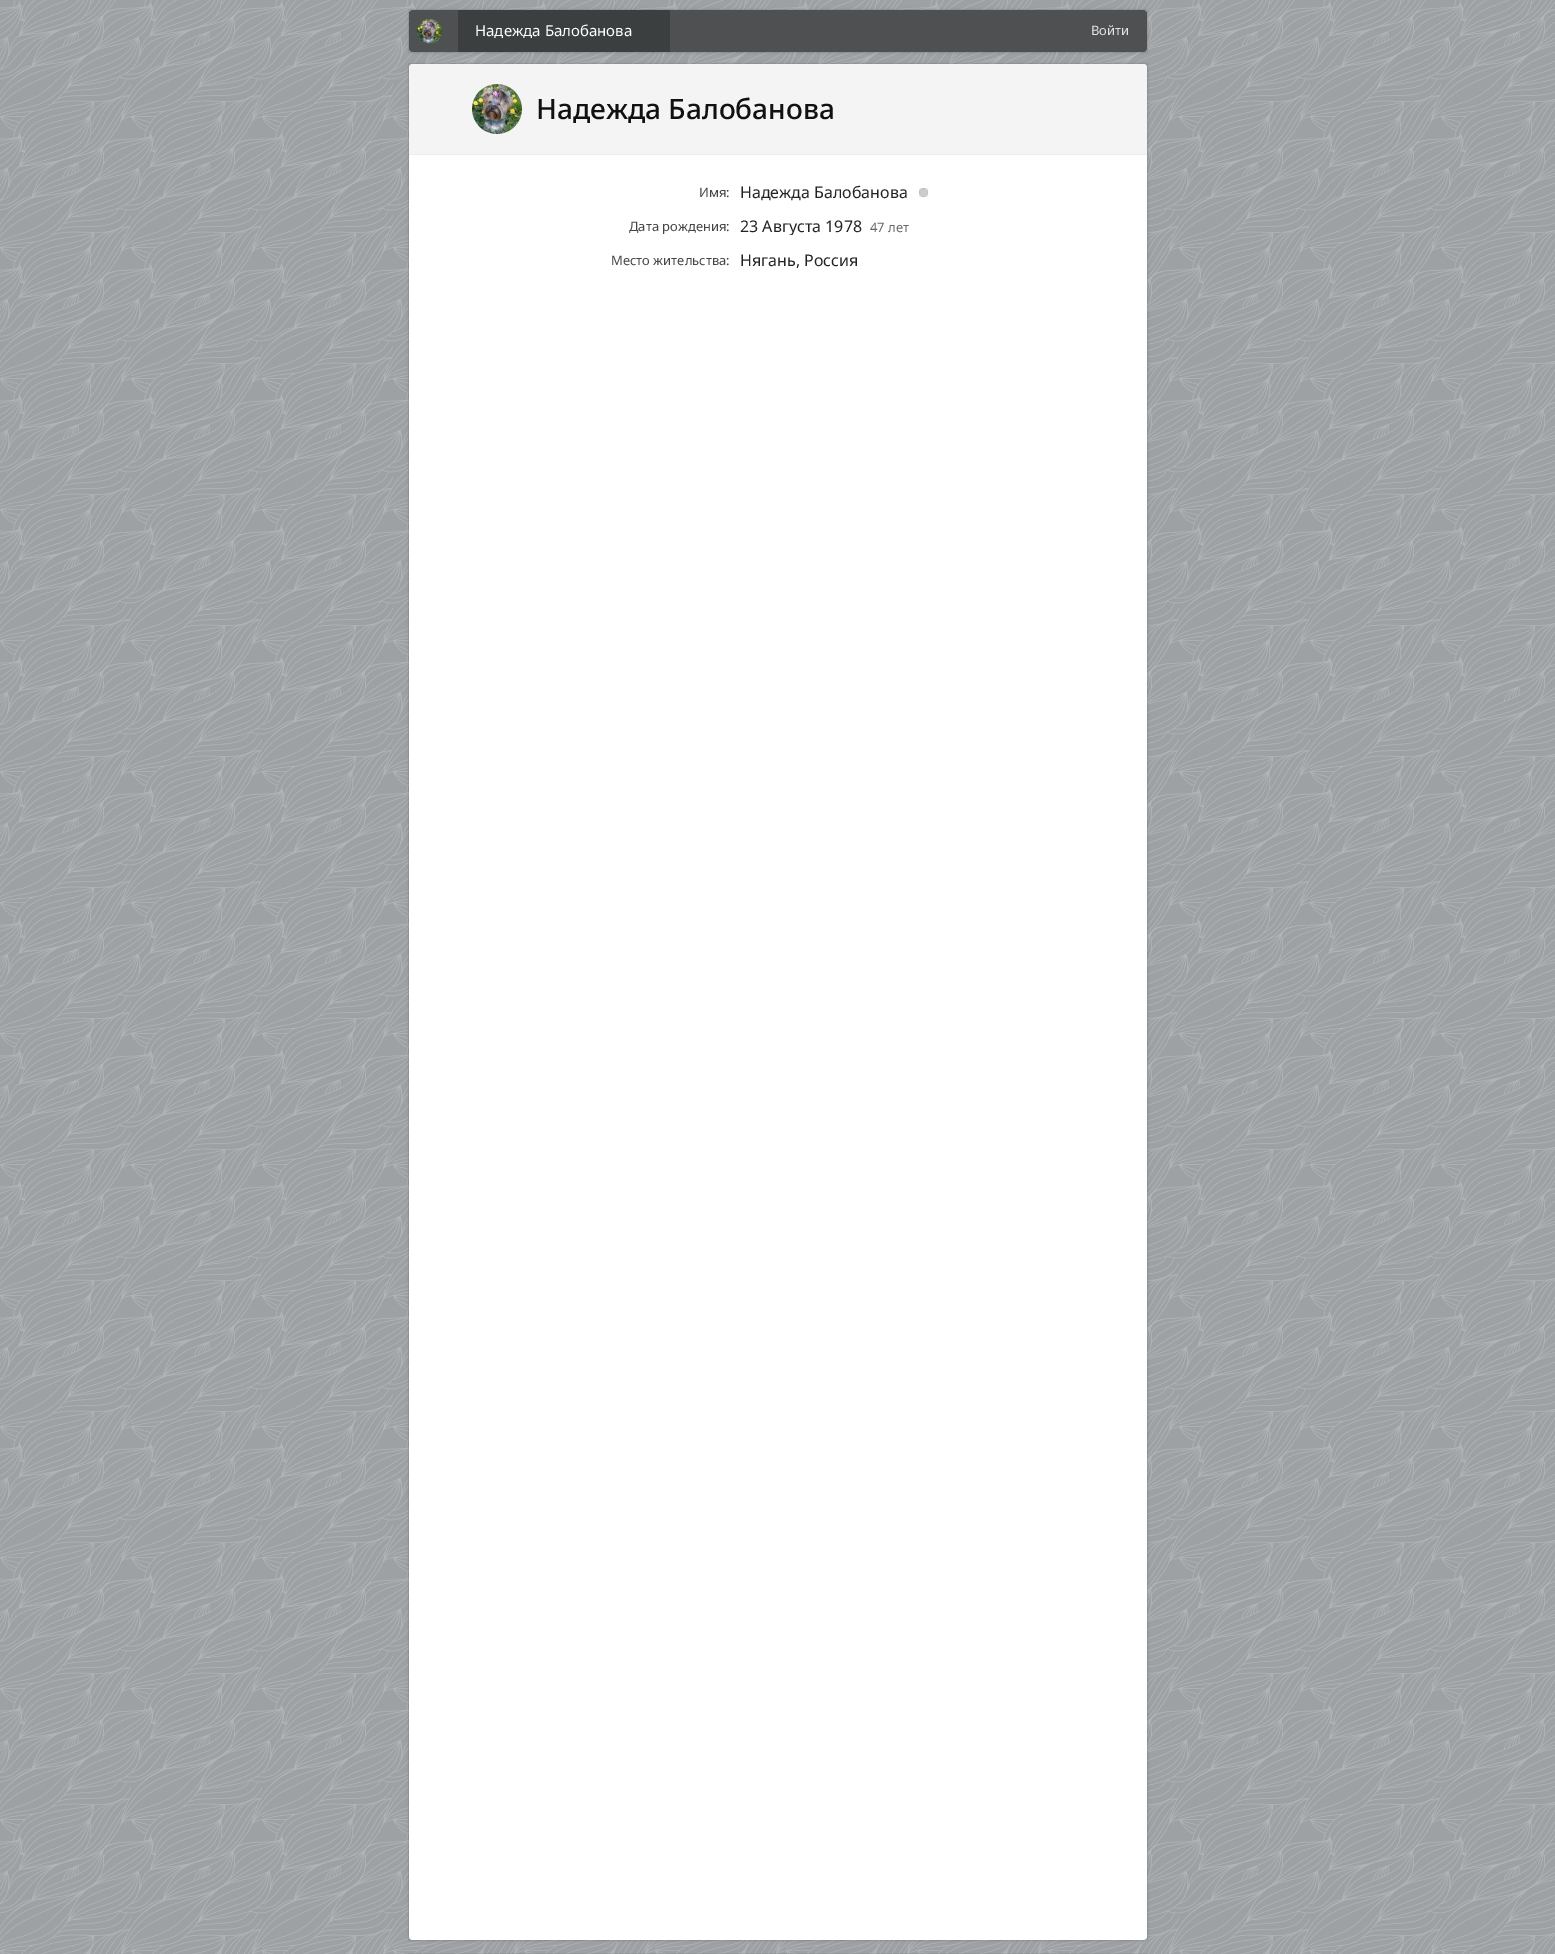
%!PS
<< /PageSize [1555 1954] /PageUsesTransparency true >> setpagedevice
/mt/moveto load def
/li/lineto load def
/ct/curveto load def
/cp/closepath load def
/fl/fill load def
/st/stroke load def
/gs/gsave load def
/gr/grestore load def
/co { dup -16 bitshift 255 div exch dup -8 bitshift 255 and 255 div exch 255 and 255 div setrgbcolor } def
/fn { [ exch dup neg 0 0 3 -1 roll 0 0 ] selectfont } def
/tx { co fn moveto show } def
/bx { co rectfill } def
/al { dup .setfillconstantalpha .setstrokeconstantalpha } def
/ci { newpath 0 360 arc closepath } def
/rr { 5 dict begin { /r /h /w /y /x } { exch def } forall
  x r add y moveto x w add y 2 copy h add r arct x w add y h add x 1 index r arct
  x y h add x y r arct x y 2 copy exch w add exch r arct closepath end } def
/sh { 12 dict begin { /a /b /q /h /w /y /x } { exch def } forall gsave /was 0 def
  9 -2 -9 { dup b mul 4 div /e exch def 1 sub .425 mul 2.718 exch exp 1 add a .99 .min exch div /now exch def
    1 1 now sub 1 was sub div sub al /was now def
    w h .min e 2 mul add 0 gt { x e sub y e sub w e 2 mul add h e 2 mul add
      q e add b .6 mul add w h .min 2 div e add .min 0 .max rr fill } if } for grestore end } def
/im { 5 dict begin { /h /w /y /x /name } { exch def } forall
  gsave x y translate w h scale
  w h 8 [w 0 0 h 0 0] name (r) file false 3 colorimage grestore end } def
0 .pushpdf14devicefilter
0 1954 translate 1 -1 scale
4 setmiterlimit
0 0 1555 1954 16#9EA1A4 bx
(media/1.raw) 0 0 1555 1954 im
0.06 al
16#000000 co
408.5 9.5 739 43 rectstroke
1 al
16#0C0C0D co
409 10 738 42 4 1.5 .1 sh
16#4E5051 co
409 10 738 42 4 rr fl
(media/2.raw) 417 19 25 25 im
0.07 al
16#000000 co
429.5 31.5 12 ci st
1 al
458 10 212 42 16#3C3F40 bx
0.06 al
16#000000 co
408.5 63.5 739 1877 rectstroke
1 al
16#0C0C0D co
409 64 738 1876 4 1.5 .1 sh
16#FFFFFF co
409 64 738 1876 4 rr fl
16#F4F4F4 co
413 64 mt 1143 64 li 1145 64 1147 66 1147 68 ct 1147 155 li 409 155 li 409 68 li 409 66 411 64 413 64 ct cp fl
409 154 738 1 16#EDEDED bx
(media/3.raw) 472 84 50 50 im
0.09 al
16#000000 co
497 109 24.5 ci st
1 al
16#CCCCCC co
923.5 192.5 4.5 ci fl
0.06 al
16#000000 co
919.5 188.5 8 8 rectstroke
408.5 1953.5 739 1 rectstroke
1 al
(Надежда Балобанова) 475 36 /NotoSans-Regular 15 16#FFFFFF tx
(Войти) 1091 35 /NotoSans-Regular 13 16#E4E4E4 tx
(Надежда Балобанова) 536 119 /NotoSans-Medium 28 16#111111 tx
(Имя:) 699 197 /NotoSans-Regular 13 16#444444 tx
(Надежда Балобанова) 740 198 /NotoSans-Regular 16 16#222222 tx
(Дата рождения:) 629 231 /NotoSans-Regular 13 16#444444 tx
gs
740 217 346 18 rectclip
(23 Августа 1978) 740 232 /NotoSans-Regular 16 16#222222 tx
gr
(47 лет) 870 232 /NotoSans-Regular 13 16#666666 tx
(Место жительства:) 611 265 /NotoSans-Regular 13 16#444444 tx
(Нягань, Россия) 740 266 /NotoSans-Regular 16 16#222222 tx
.poppdf14devicefilter showpage
